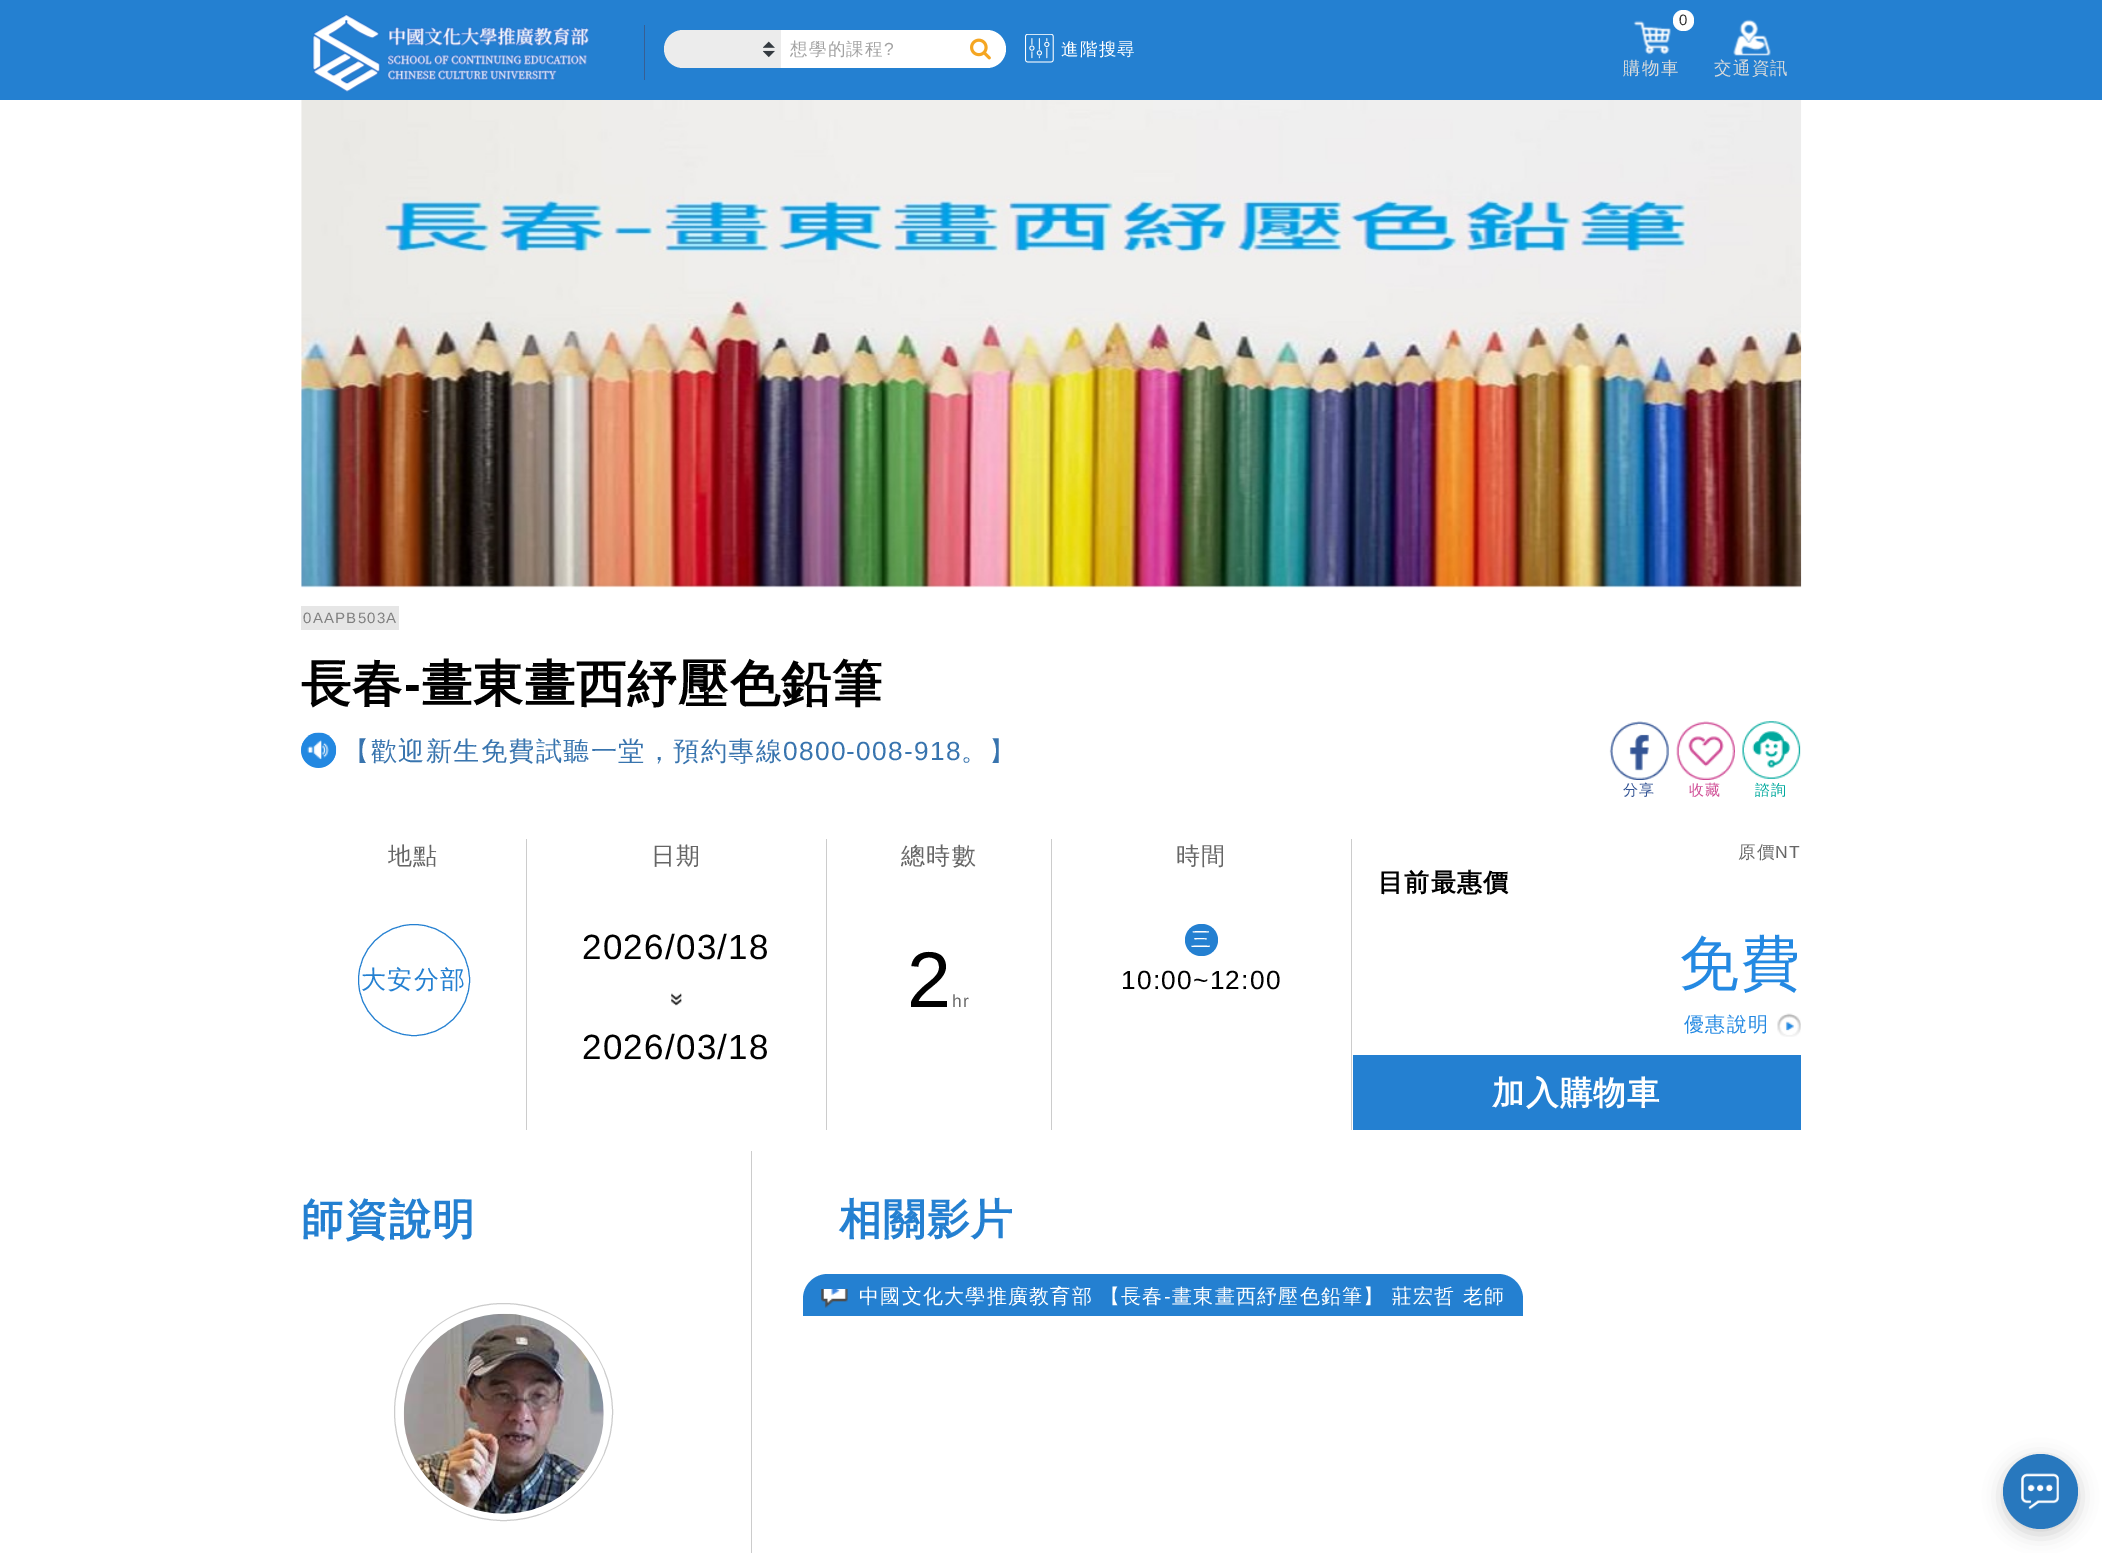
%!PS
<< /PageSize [2102 1553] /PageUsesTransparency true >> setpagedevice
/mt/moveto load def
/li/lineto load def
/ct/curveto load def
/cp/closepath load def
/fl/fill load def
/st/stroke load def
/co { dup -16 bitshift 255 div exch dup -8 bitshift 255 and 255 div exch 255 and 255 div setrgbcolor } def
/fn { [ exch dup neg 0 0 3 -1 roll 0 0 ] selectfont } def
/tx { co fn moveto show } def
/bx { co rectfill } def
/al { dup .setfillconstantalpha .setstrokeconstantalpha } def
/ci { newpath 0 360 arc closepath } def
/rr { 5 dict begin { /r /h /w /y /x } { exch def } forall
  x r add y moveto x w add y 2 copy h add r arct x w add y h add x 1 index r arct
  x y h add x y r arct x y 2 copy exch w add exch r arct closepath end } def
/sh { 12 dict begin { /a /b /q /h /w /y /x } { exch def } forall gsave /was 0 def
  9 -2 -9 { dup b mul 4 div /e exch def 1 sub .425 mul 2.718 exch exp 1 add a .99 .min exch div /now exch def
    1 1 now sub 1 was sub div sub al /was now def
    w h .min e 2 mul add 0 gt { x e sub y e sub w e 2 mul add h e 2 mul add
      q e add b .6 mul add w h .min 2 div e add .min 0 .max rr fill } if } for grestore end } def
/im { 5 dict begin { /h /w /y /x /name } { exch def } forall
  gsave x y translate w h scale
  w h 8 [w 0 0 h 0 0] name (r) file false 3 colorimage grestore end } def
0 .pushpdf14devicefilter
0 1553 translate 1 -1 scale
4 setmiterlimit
0 0 2102 1553 16#FFFFFF bx
0 0 2102 100 16#2480D1 bx
(media/1.raw) 312 14 277 78 im
644 25 1 55 16#375F93 bx
16#ECECEC co
683 30 mt 781 30 li 781 68 li 683 68 li 672.5 68 664 59.5 664 49 ct 664 38.5 672.5 30 683 30 ct cp fl
(media/2.raw) 763 41 12 17 im
16#FFFFFF co
781 30 mt 987 30 li 997.5 30 1006 38.5 1006 49 ct 1006 59.5 997.5 68 987 68 ct 781 68 li cp fl
(media/3.raw) 970 38 21 22 im
(media/4.raw) 1025 34 29 29 im
(media/5.raw) 1633 20 38 35 im
1673 10 21 21 10 rr fl
(media/6.raw) 1733 19 38 37 im
(media/7.raw) 301 100 1501 488 im
301 606 98 24 16#E6E6E6 bx
16#2489E2 co
318.5 750.5 17.5 ci fl
(media/8.raw) 301 732 36 36 im
(media/9.raw) 1609 721 60 59 im
(media/10.raw) 1676 721 59 59 im
(media/11.raw) 1742 721 59 58 im
526 839 1 291 16#CCCCCC bx
16#2480D1 co
414 980 55.5 ci st
826 839 1 291 16#CCCCCC bx
(media/12.raw) 671 993 11 13 im
1051 839 1 291 16#CCCCCC bx
1351 839 1 291 16#CCCCCC bx
16#2480D1 co
1185 924 33 32 16 rr fl
(media/13.raw) 1777 1013 24 24 im
1353 1055 448 75 16#2480D1 bx
16#CCCCCC co
394.5 1303.5 218 217 108.5 rr st
(media/14.raw) 403 1313 201 201 im
751 1151 1 402 16#CCCCCC bx
16#2480D1 co
828 1274 mt 1498 1274 li 1512 1274 1523 1285 1523 1299 ct 1523 1316 li 803 1316 li 803 1299 li 803 1285 814 1274 828 1274 ct cp fl
(media/15.raw) 821 1289 27 19 im
16#000000 co
2003 1459 75 75 37.5 9.5 .2 sh
16#2878BE co
2040.5 1491.5 37.5 ci fl
(media/16.raw) 2021 1473 38 37 im
/WenQuanYiZenHei-Medium 17.5 fn
16#A2A2A2 co
790 55 mt 1.25 0 (想學的課程) ashow
/LiberationSans-Regular 17.5 fn
884 55 mt 1.25 0 (?) ashow
/WenQuanYiZenHei-Medium 17.5 fn
16#FFFFFF co
1061 55 mt 1.25 0 (進階搜尋) ashow
(0) 1679 25 /LiberationSans-Regular 15 16#333333 tx
/WenQuanYiZenHei-Medium 17.5 fn
16#DADBDB co
1623 74 mt 1.25 0 (購物車) ashow
1714 74 mt 1.25 0 (交通資訊) ashow
/LiberationSans-Regular 15 fn
16#808080 co
303 623 mt 1.25 0 (0AAPB503A) ashow
/WenQuanYiZenHei-Bold 50 fn
16#000000 co
301 701 mt 1.25 0 (長春) ashow
/LiberationSans-Bold 50 fn
404 701 mt 1.25 0 (-) ashow
/WenQuanYiZenHei-Bold 50 fn
422 701 mt 1.25 0 (畫東畫西紓壓色鉛筆) ashow
/WenQuanYiZenHei-Medium 26.25 fn
16#3874AE co
343 760 mt 1.25 0 (【歡迎新生免費試聽一堂，預約專線) ashow
/LiberationSans-Regular 26.25 fn
783 760 mt 1.25 0 (0800-008-918) ashow
/WenQuanYiZenHei-Medium 26.25 fn
961 760 mt 1.25 0 (。】) ashow
/WenQuanYiZenHei-Medium 15 fn
16#345595 co
1623 795 mt 1.25 0 (分享) ashow
16#CF4B94 co
1689 795 mt 1.25 0 (收藏) ashow
16#00A99D co
1755 795 mt 1.25 0 (諮詢) ashow
/WenQuanYiZenHei-Medium 24 fn
16#666666 co
388 864 mt 1.25 0 (地點) ashow
/WenQuanYiZenHei-Medium 25 fn
16#2480D1 co
361 988 mt 1.25 0 (大安分部) ashow
/WenQuanYiZenHei-Medium 24 fn
16#666666 co
651 864 mt 1.25 0 (日期) ashow
/LiberationSans-Regular 35 fn
16#000000 co
582 959 mt 1.25 0 (2026/03/18) ashow
582 1059 mt 1.25 0 (2026/03/18) ashow
/WenQuanYiZenHei-Medium 24 fn
16#666666 co
901 864 mt 1.25 0 (總時數) ashow
/LiberationSans-Regular 79 fn
16#000000 co
907 1007 mt 1.25 0 (2) ashow
/LiberationSans-Regular 17.5 fn
16#666666 co
952 1007 mt 1.25 0 (hr) ashow
/WenQuanYiZenHei-Medium 24 fn
1176 864 mt 1.25 0 (時間) ashow
/WenQuanYiZenHei-Medium 20 fn
16#FFFFFF co
1191 946 mt 1.25 0 (三) ashow
/LiberationSans-Regular 26.25 fn
16#000000 co
1121 989 mt 1.25 0 (10:00~12:00) ashow
/WenQuanYiZenHei-Medium 17.5 fn
16#666666 co
1738 858 mt 1.25 0 (原價) ashow
/LiberationSans-Regular 17.5 fn
1775 858 mt 1.25 0 (NT) ashow
/WenQuanYiZenHei-Bold 25 fn
16#000000 co
1378 891 mt 1.25 0 (目前最惠價) ashow
/WenQuanYiZenHei-Medium 60 fn
16#2489E2 co
1679 984 mt 1.25 0 (免費) ashow
/WenQuanYiZenHei-Medium 20 fn
1684 1031 mt 1.25 0 (優惠說明) ashow
/WenQuanYiZenHei-Bold 32.5 fn
16#FFFFFF co
1492 1104 mt 1.25 0 (加入購物車) ashow
/WenQuanYiZenHei-Bold 42.5 fn
16#2480D1 co
301 1234 mt 1.25 0 (師資說明) ashow
839 1234 mt 1.25 0 (相關影片) ashow
/WenQuanYiZenHei-Medium 20 fn
16#FFFFFF co
859 1303 mt 1.25 0 (中國文化大學推廣教育部 【長春) ashow
/LiberationSans-Regular 20 fn
1164 1303 mt 1.25 0 (-) ashow
/WenQuanYiZenHei-Medium 20 fn
1172 1303 mt 1.25 0 (畫東畫西紓壓色鉛筆】 莊宏哲 老師) ashow
.poppdf14devicefilter showpage
